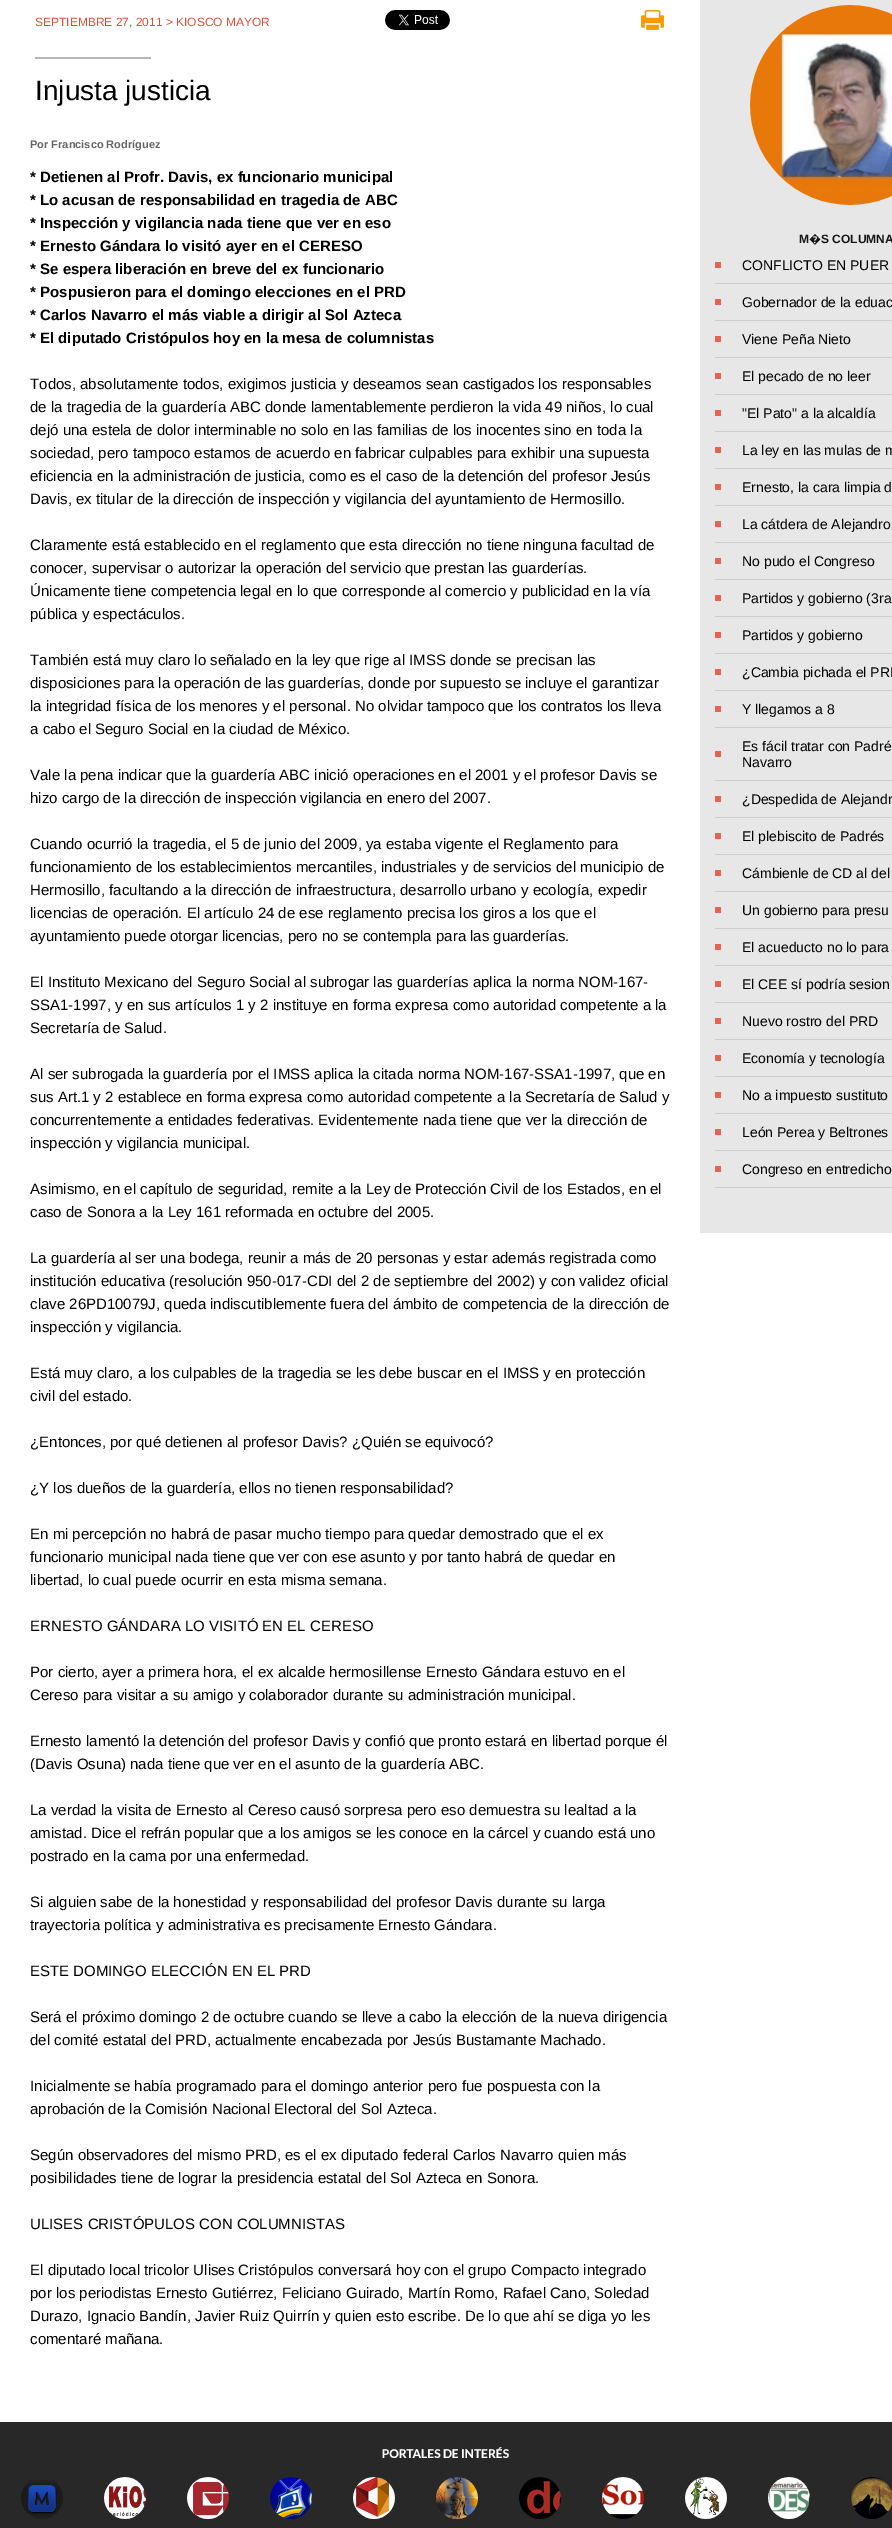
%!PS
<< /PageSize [892 2528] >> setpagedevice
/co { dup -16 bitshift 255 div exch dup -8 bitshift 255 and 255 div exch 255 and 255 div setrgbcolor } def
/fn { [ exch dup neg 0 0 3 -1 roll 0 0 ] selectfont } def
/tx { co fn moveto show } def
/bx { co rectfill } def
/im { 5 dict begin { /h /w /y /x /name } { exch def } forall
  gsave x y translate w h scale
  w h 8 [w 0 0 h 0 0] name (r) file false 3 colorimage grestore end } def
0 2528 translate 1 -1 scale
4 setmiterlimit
0 0 892 2528 16#FFFFFF bx
35 57 116 2 16#B7B7B6 bx
(media/1.raw) 385 10 65 20 im
(media/2.raw) 641 10 23 20 im
700 0 192 1233 16#E7E7E7 bx
(media/3.raw) 750 5 142 200 im
715 262 6 6 16#E66352 bx
715 283 177 1 16#CCCCCC bx
715 299 6 6 16#E66352 bx
715 320 177 1 16#CCCCCC bx
715 336 6 6 16#E66352 bx
715 357 177 1 16#CCCCCC bx
715 373 6 6 16#E66352 bx
715 394 177 1 16#CCCCCC bx
715 410 6 6 16#E66352 bx
715 431 177 1 16#CCCCCC bx
715 447 6 6 16#E66352 bx
715 468 177 1 16#CCCCCC bx
715 484 6 6 16#E66352 bx
715 505 177 1 16#CCCCCC bx
715 521 6 6 16#E66352 bx
715 542 177 1 16#CCCCCC bx
715 558 6 6 16#E66352 bx
715 579 177 1 16#CCCCCC bx
715 595 6 6 16#E66352 bx
715 616 177 1 16#CCCCCC bx
715 632 6 6 16#E66352 bx
715 653 177 1 16#CCCCCC bx
715 669 6 6 16#E66352 bx
715 690 177 1 16#CCCCCC bx
715 706 6 6 16#E66352 bx
715 727 177 1 16#CCCCCC bx
715 751 6 6 16#E66352 bx
715 780 177 1 16#CCCCCC bx
715 796 6 6 16#E66352 bx
715 817 177 1 16#CCCCCC bx
715 833 6 6 16#E66352 bx
715 854 177 1 16#CCCCCC bx
715 870 6 6 16#E66352 bx
715 891 177 1 16#CCCCCC bx
715 907 6 6 16#E66352 bx
715 928 177 1 16#CCCCCC bx
715 944 6 6 16#E66352 bx
715 965 177 1 16#CCCCCC bx
715 981 6 6 16#E66352 bx
715 1002 177 1 16#CCCCCC bx
715 1018 6 6 16#E66352 bx
715 1039 177 1 16#CCCCCC bx
715 1055 6 6 16#E66352 bx
715 1076 177 1 16#CCCCCC bx
715 1092 6 6 16#E66352 bx
715 1113 177 1 16#CCCCCC bx
715 1129 6 6 16#E66352 bx
715 1150 177 1 16#CCCCCC bx
715 1166 6 6 16#E66352 bx
715 1187 177 1 16#CCCCCC bx
0 2422 892 106 16#282828 bx
(media/4.raw) 382 2447 127 11 im
(media/5.raw) 21 2480 42 39 im
(media/6.raw) 104 2477 42 42 im
(media/7.raw) 187 2477 42 42 im
(media/8.raw) 270 2477 42 42 im
(media/9.raw) 353 2477 42 42 im
(media/10.raw) 436 2477 42 42 im
(media/11.raw) 519 2477 42 42 im
(media/12.raw) 602 2477 42 42 im
(media/13.raw) 685 2477 42 42 im
(media/14.raw) 768 2477 42 42 im
(media/15.raw) 851 2477 41 42 im
(SEPTIEMBRE 27, 2011 > KIOSCO MAYOR) 35 26 /LiberationSans-Regular 12 16#E44D39 tx
(Injusta justicia) 35 100 /LiberationSans-Regular 28 16#000000 tx
(Por Francisco Rodríguez) 30 148 /LiberationSans-Bold 11 16#666666 tx
(* Detienen al Profr. Davis, ex funcionario municipal) 30 182 /LiberationSans-Bold 15 16#000000 tx
(* Lo acusan de responsabilidad en tragedia de ABC) 30 205 /LiberationSans-Bold 15 16#000000 tx
(* Inspección y vigilancia nada tiene que ver en eso) 30 228 /LiberationSans-Bold 15 16#000000 tx
(* Ernesto Gándara lo visitó ayer en el CERESO) 30 251 /LiberationSans-Bold 15 16#000000 tx
(* Se espera liberación en breve del ex funcionario) 30 274 /LiberationSans-Bold 15 16#000000 tx
(* Pospusieron para el domingo elecciones en el PRD) 30 297 /LiberationSans-Bold 15 16#000000 tx
(* Carlos Navarro el más viable a dirigir al Sol Azteca) 30 320 /LiberationSans-Bold 15 16#000000 tx
(* El diputado Cristópulos hoy en la mesa de columnistas) 30 343 /LiberationSans-Bold 15 16#000000 tx
(Todos, absolutamente todos, exigimos justicia y deseamos sean castigados los responsables) 30 389 /LiberationSans-Regular 15 16#000000 tx
(de la tragedia de la guardería ABC donde lamentablemente perdieron la vida 49 niños, lo cual) 30 412 /LiberationSans-Regular 15 16#000000 tx
(dejó una estela de dolor interminable no solo en las familias de los inocentes sino en toda la) 30 435 /LiberationSans-Regular 15 16#000000 tx
(sociedad, pero tampoco estamos de acuerdo en fabricar culpables para exhibir una supuesta) 30 458 /LiberationSans-Regular 15 16#000000 tx
(eficiencia en la administración de justicia, como es el caso de la detención del profesor Jesús) 30 481 /LiberationSans-Regular 15 16#000000 tx
(Davis, ex titular de la dirección de inspección y vigilancia del ayuntamiento de Hermosillo.) 30 504 /LiberationSans-Regular 15 16#000000 tx
(Claramente está establecido en el reglamento que esta dirección no tiene ninguna facultad de) 30 550 /LiberationSans-Regular 15 16#000000 tx
(conocer, supervisar o autorizar la operación del servicio que prestan las guarderías.) 30 573 /LiberationSans-Regular 15 16#000000 tx
(Únicamente tiene competencia legal en lo que corresponde al comercio y publicidad en la vía) 30 596 /LiberationSans-Regular 15 16#000000 tx
(pública y espectáculos.) 30 619 /LiberationSans-Regular 15 16#000000 tx
(También está muy claro lo señalado en la ley que rige al IMSS donde se precisan las) 30 665 /LiberationSans-Regular 15 16#000000 tx
(disposiciones para la operación de las guarderías, donde por supuesto se incluye el garantizar) 30 688 /LiberationSans-Regular 15 16#000000 tx
(la integridad física de los menores y el personal. No olvidar tampoco que los contratos los lleva) 30 711 /LiberationSans-Regular 15 16#000000 tx
(a cabo el Seguro Social en la ciudad de México.) 30 734 /LiberationSans-Regular 15 16#000000 tx
(Vale la pena indicar que la guardería ABC inició operaciones en el 2001 y el profesor Davis se) 30 780 /LiberationSans-Regular 15 16#000000 tx
(hizo cargo de la dirección de inspección vigilancia en enero del 2007.) 30 803 /LiberationSans-Regular 15 16#000000 tx
(Cuando ocurrió la tragedia, el 5 de junio del 2009, ya estaba vigente el Reglamento para) 30 849 /LiberationSans-Regular 15 16#000000 tx
(funcionamiento de los establecimientos mercantiles, industriales y de servicios del municipio de) 30 872 /LiberationSans-Regular 15 16#000000 tx
(Hermosillo, facultando a la dirección de infraestructura, desarrollo urbano y ecología, expedir) 30 895 /LiberationSans-Regular 15 16#000000 tx
(licencias de operación. El artículo 24 de ese reglamento precisa los giros a los que el) 30 918 /LiberationSans-Regular 15 16#000000 tx
(ayuntamiento puede otorgar licencias, pero no se contempla para las guarderías.) 30 941 /LiberationSans-Regular 15 16#000000 tx
(El Instituto Mexicano del Seguro Social al subrogar las guarderías aplica la norma NOM-167-) 30 987 /LiberationSans-Regular 15 16#000000 tx
(SSA1-1997, y en sus artículos 1 y 2 instituye en forma expresa como autoridad competente a la) 30 1010 /LiberationSans-Regular 15 16#000000 tx
(Secretaría de Salud.) 30 1033 /LiberationSans-Regular 15 16#000000 tx
(Al ser subrogada la guardería por el IMSS aplica la citada norma NOM-167-SSA1-1997, que en) 30 1079 /LiberationSans-Regular 15 16#000000 tx
(sus Art.1 y 2 establece en forma expresa como autoridad competente a la Secretaría de Salud y) 30 1102 /LiberationSans-Regular 15 16#000000 tx
(concurrentemente a entidades federativas. Evidentemente nada tiene que ver la dirección de) 30 1125 /LiberationSans-Regular 15 16#000000 tx
(inspección y vigilancia municipal.) 30 1148 /LiberationSans-Regular 15 16#000000 tx
(Asimismo, en el capítulo de seguridad, remite a la Ley de Protección Civil de los Estados, en el) 30 1194 /LiberationSans-Regular 15 16#000000 tx
(caso de Sonora a la Ley 161 reformada en octubre del 2005.) 30 1217 /LiberationSans-Regular 15 16#000000 tx
(La guardería al ser una bodega, reunir a más de 20 personas y estar además registrada como) 30 1263 /LiberationSans-Regular 15 16#000000 tx
(institución educativa \(resolución 950-017-CDI del 2 de septiembre del 2002\) y con validez oficial) 30 1286 /LiberationSans-Regular 15 16#000000 tx
(clave 26PD10079J, queda indiscutiblemente fuera del ámbito de competencia de la dirección de) 30 1309 /LiberationSans-Regular 15 16#000000 tx
(inspección y vigilancia.) 30 1332 /LiberationSans-Regular 15 16#000000 tx
(Está muy claro, a los culpables de la tragedia se les debe buscar en el IMSS y en protección) 30 1378 /LiberationSans-Regular 15 16#000000 tx
(civil del estado.) 30 1401 /LiberationSans-Regular 15 16#000000 tx
(¿Entonces, por qué detienen al profesor Davis? ¿Quién se equivocó?) 30 1447 /LiberationSans-Regular 15 16#000000 tx
(¿Y los dueños de la guardería, ellos no tienen responsabilidad?) 30 1493 /LiberationSans-Regular 15 16#000000 tx
(En mi percepción no habrá de pasar mucho tiempo para quedar demostrado que el ex) 30 1539 /LiberationSans-Regular 15 16#000000 tx
(funcionario municipal nada tiene que ver con ese asunto y por tanto habrá de quedar en) 30 1562 /LiberationSans-Regular 15 16#000000 tx
(libertad, lo cual puede ocurrir en esta misma semana.) 30 1585 /LiberationSans-Regular 15 16#000000 tx
(ERNESTO GÁNDARA LO VISITÓ EN EL CERESO) 30 1631 /LiberationSans-Regular 15 16#000000 tx
(Por cierto, ayer a primera hora, el ex alcalde hermosillense Ernesto Gándara estuvo en el) 30 1677 /LiberationSans-Regular 15 16#000000 tx
(Cereso para visitar a su amigo y colaborador durante su administración municipal.) 30 1700 /LiberationSans-Regular 15 16#000000 tx
(Ernesto lamentó la detención del profesor Davis y confió que pronto estará en libertad porque él) 30 1746 /LiberationSans-Regular 15 16#000000 tx
(\(Davis Osuna\) nada tiene que ver en el asunto de la guardería ABC.) 30 1769 /LiberationSans-Regular 15 16#000000 tx
(La verdad la visita de Ernesto al Cereso causó sorpresa pero eso demuestra su lealtad a la) 30 1815 /LiberationSans-Regular 15 16#000000 tx
(amistad. Dice el refrán popular que a los amigos se les conoce en la cárcel y cuando está uno) 30 1838 /LiberationSans-Regular 15 16#000000 tx
(postrado en la cama por una enfermedad.) 30 1861 /LiberationSans-Regular 15 16#000000 tx
(Si alguien sabe de la honestidad y responsabilidad del profesor Davis durante su larga) 30 1907 /LiberationSans-Regular 15 16#000000 tx
(trayectoria política y administrativa es precisamente Ernesto Gándara.) 30 1930 /LiberationSans-Regular 15 16#000000 tx
(ESTE DOMINGO ELECCIÓN EN EL PRD) 30 1976 /LiberationSans-Regular 15 16#000000 tx
(Será el próximo domingo 2 de octubre cuando se lleve a cabo la elección de la nueva dirigencia) 30 2022 /LiberationSans-Regular 15 16#000000 tx
(del comité estatal del PRD, actualmente encabezada por Jesús Bustamante Machado.) 30 2045 /LiberationSans-Regular 15 16#000000 tx
(Inicialmente se había programado para el domingo anterior pero fue pospuesta con la) 30 2091 /LiberationSans-Regular 15 16#000000 tx
(aprobación de la Comisión Nacional Electoral del Sol Azteca.) 30 2114 /LiberationSans-Regular 15 16#000000 tx
(Según observadores del mismo PRD, es el ex diputado federal Carlos Navarro quien más) 30 2160 /LiberationSans-Regular 15 16#000000 tx
(posibilidades tiene de lograr la presidencia estatal del Sol Azteca en Sonora.) 30 2183 /LiberationSans-Regular 15 16#000000 tx
(ULISES CRISTÓPULOS CON COLUMNISTAS) 30 2229 /LiberationSans-Regular 15 16#000000 tx
(El diputado local tricolor Ulises Cristópulos conversará hoy con el grupo Compacto integrado) 30 2275 /LiberationSans-Regular 15 16#000000 tx
(por los periodistas Ernesto Gutiérrez, Feliciano Guirado, Martín Romo, Rafael Cano, Soledad) 30 2298 /LiberationSans-Regular 15 16#000000 tx
(Durazo, Ignacio Bandín, Javier Ruiz Quirrín y quien esto escribe. De lo que ahí se diga yo les) 30 2321 /LiberationSans-Regular 15 16#000000 tx
(comentaré mañana.) 30 2344 /LiberationSans-Regular 15 16#000000 tx
(M) 799 243 /LiberationSans-Bold 12 16#161615 tx
(�) 809 243 /NotoSans-Bold 12 16#161615 tx
(S COLUMNA) 821 243 /LiberationSans-Bold 12 16#161615 tx
(CONFLICTO EN PUER) 742 270 /LiberationSans-Regular 14 16#000000 tx
(Gobernador de la eduac) 742 307 /LiberationSans-Regular 14 16#000000 tx
(Viene Peña Nieto) 742 344 /LiberationSans-Regular 14 16#000000 tx
(El pecado de no leer) 742 381 /LiberationSans-Regular 14 16#000000 tx
("El Pato" a la alcaldía) 742 418 /LiberationSans-Regular 14 16#000000 tx
(La ley en las mulas de m) 742 455 /LiberationSans-Regular 14 16#000000 tx
(Ernesto, la cara limpia d) 742 492 /LiberationSans-Regular 14 16#000000 tx
(La cátdera de Alejandro) 742 529 /LiberationSans-Regular 14 16#000000 tx
(No pudo el Congreso) 742 566 /LiberationSans-Regular 14 16#000000 tx
(Partidos y gobierno \(3ra) 742 603 /LiberationSans-Regular 14 16#000000 tx
(Partidos y gobierno) 742 640 /LiberationSans-Regular 14 16#000000 tx
(¿Cambia pichada el PRI) 742 677 /LiberationSans-Regular 14 16#000000 tx
(Y llegamos a 8) 742 714 /LiberationSans-Regular 14 16#000000 tx
(Es fácil tratar con Padré) 742 751 /LiberationSans-Regular 14 16#000000 tx
(Navarro) 742 767 /LiberationSans-Regular 14 16#000000 tx
(¿Despedida de Alejandr) 742 804 /LiberationSans-Regular 14 16#000000 tx
(El plebiscito de Padrés) 742 841 /LiberationSans-Regular 14 16#000000 tx
(Cámbienle de CD al del) 742 878 /LiberationSans-Regular 14 16#000000 tx
(Un gobierno para presu) 742 915 /LiberationSans-Regular 14 16#000000 tx
(El acueducto no lo para) 742 952 /LiberationSans-Regular 14 16#000000 tx
(El CEE sí podría sesion) 742 989 /LiberationSans-Regular 14 16#000000 tx
(Nuevo rostro del PRD) 742 1026 /LiberationSans-Regular 14 16#000000 tx
(Economía y tecnología) 742 1063 /LiberationSans-Regular 14 16#000000 tx
(No a impuesto sustituto) 742 1100 /LiberationSans-Regular 14 16#000000 tx
(León Perea y Beltrones) 742 1137 /LiberationSans-Regular 14 16#000000 tx
(Congreso en entredicho) 742 1174 /LiberationSans-Regular 14 16#000000 tx
showpage
